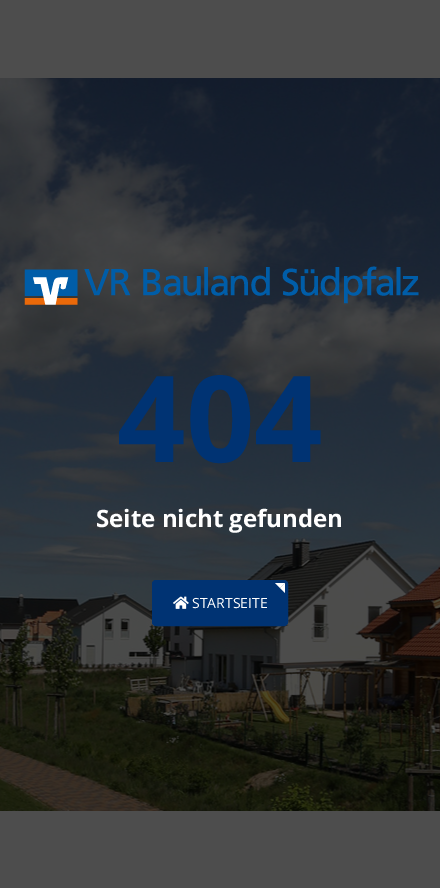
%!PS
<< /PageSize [440 888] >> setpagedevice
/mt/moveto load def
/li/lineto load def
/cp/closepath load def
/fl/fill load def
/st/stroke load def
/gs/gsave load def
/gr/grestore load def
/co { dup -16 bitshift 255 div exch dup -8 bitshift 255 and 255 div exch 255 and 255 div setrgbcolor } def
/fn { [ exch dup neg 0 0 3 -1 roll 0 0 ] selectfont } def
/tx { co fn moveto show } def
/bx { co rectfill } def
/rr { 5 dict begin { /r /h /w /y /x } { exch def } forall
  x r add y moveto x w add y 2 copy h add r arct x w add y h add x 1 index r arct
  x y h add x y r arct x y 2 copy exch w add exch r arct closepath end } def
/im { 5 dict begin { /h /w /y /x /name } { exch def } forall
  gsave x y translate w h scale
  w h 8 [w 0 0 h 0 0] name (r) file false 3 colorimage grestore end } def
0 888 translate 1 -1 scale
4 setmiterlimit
0 0 440 888 16#4D4D4D bx
(media/1.raw) 0 78 440 733 im
(media/2.raw) 24 266 395 39 im
16#003373 co
152.5 580.5 135 45 3.5 rr gs fl gr
st
16#FFFFFF co
275 583 mt 285 583 li 280 588 li cp fl
285 583 mt 285 593 li 280 588 li cp fl
(media/3.raw) 173 596 16 13 im
(404) 117 462 /OpenSans-Bold 120 16#003373 tx
(Seite nicht gefunden) 96 527 /OpenSans-Bold 24 16#FFFFFF tx
(STARTSEITE) 192 608 /OpenSans-Regular 14 16#FFFFFF tx
showpage
